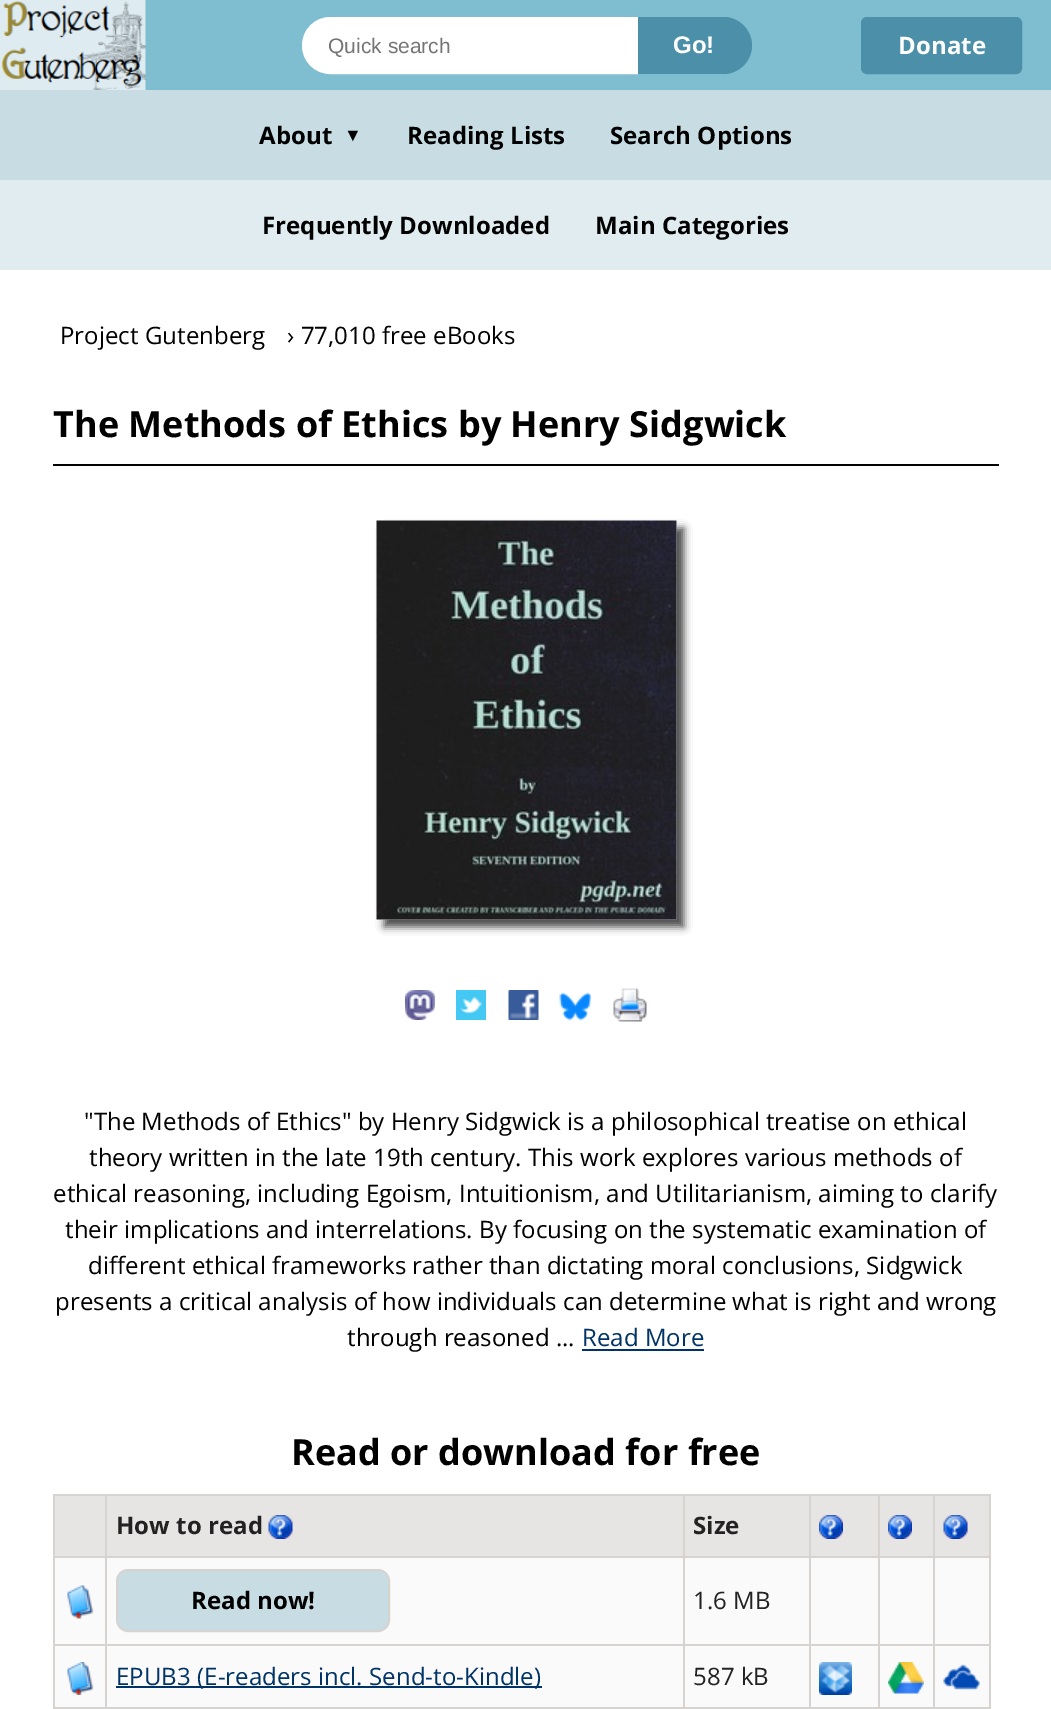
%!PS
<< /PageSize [1051 1709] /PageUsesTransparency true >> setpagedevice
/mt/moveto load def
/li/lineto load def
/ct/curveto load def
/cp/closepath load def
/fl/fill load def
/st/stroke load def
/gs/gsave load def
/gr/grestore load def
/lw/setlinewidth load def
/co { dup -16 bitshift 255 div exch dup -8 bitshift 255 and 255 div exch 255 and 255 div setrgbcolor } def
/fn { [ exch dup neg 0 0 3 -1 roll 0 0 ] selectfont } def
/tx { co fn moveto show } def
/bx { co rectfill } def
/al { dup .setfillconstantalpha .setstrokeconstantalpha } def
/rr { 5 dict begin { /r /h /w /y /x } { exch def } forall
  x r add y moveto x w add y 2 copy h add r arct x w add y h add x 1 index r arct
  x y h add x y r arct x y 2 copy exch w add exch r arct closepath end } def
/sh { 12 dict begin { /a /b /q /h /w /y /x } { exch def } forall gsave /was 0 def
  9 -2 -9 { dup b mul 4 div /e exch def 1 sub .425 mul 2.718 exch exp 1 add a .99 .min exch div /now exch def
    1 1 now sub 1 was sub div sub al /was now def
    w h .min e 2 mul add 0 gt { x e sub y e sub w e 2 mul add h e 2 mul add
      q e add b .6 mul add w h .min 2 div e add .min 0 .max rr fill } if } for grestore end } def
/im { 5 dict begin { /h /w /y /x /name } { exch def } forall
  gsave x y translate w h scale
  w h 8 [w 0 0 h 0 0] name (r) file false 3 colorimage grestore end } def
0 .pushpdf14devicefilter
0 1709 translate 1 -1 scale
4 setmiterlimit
0 0 1051 1709 16#FFFFFF bx
145 0 906 90 16#7EBED0 bx
(media/1.raw) 0 0 146 90 im
16#FFFFFF co
330.5 18.5 mt 636.5 18.5 li 636.5 72.5 li 330.5 72.5 li 315.5 72.5 303.5 60.5 303.5 45.5 ct 303.5 30.5 315.5 18.5 330.5 18.5 ct cp gs fl gr
3 lw
st
16#4C8FA8 co
638 17 mt 723.5 17 li 739 17 752 30 752 45.5 ct 752 61 739 74 723.5 74 ct 638 74 li cp fl
862.5 18.5 158 54 4.5 rr gs fl gr
st
0 90 1051 90 16#C7DDE3 bx
0 180 1051 90 16#E0ECF0 bx
53 464 946 2 16#000000 bx
384 528 300 399 0 4 .7 sh
(media/2.raw) 376 520 301 400 im
(media/3.raw) 405 990 30 30 im
(media/4.raw) 456 990 30 30 im
(media/5.raw) 508 990 31 30 im
(media/6.raw) 559 992 32 29 im
(media/7.raw) 613 988 34 34 im
582 1349 122 2 16#003366 bx
55 1496 50 60 16#E7E5E4 bx
933 1494 57 2 16#D6D3D1 bx
933 1556 57 2 16#D6D3D1 bx
933 1644 57 2 16#D6D3D1 bx
53 1707 937 2 16#D6D3D1 bx
933 1644 2 65 16#D6D3D1 bx
878 1644 57 2 16#D6D3D1 bx
933 1556 2 90 16#D6D3D1 bx
878 1556 57 2 16#D6D3D1 bx
933 1494 2 63 16#D6D3D1 bx
878 1494 57 2 16#D6D3D1 bx
878 1644 2 65 16#D6D3D1 bx
809 1644 70 2 16#D6D3D1 bx
878 1556 2 90 16#D6D3D1 bx
809 1556 70 2 16#D6D3D1 bx
878 1494 2 63 16#D6D3D1 bx
809 1494 70 2 16#D6D3D1 bx
809 1644 2 65 16#D6D3D1 bx
683 1644 127 2 16#D6D3D1 bx
809 1556 2 90 16#D6D3D1 bx
683 1556 127 2 16#D6D3D1 bx
809 1494 2 63 16#D6D3D1 bx
683 1494 127 2 16#D6D3D1 bx
683 1644 2 65 16#D6D3D1 bx
105 1644 579 2 16#D6D3D1 bx
683 1556 2 90 16#D6D3D1 bx
105 1556 579 2 16#D6D3D1 bx
683 1494 2 63 16#D6D3D1 bx
105 1494 579 2 16#D6D3D1 bx
105 1644 2 65 16#D6D3D1 bx
53 1644 54 2 16#D6D3D1 bx
105 1556 2 90 16#D6D3D1 bx
53 1556 54 2 16#D6D3D1 bx
105 1494 2 63 16#D6D3D1 bx
53 1494 54 2 16#D6D3D1 bx
53 1644 2 65 16#D6D3D1 bx
53 1556 2 90 16#D6D3D1 bx
53 1494 2 63 16#D6D3D1 bx
107 1496 576 60 16#E7E5E4 bx
(media/8.raw) 268 1515 25 24 im
685 1496 124 60 16#E7E5E4 bx
811 1496 67 60 16#E7E5E4 bx
(media/9.raw) 819 1515 24 24 im
880 1496 53 60 16#E7E5E4 bx
(media/9.raw) 888 1515 24 24 im
935 1496 54 60 16#E7E5E4 bx
989 1644 2 65 16#D6D3D1 bx
989 1556 2 90 16#D6D3D1 bx
989 1494 2 63 16#D6D3D1 bx
(media/8.raw) 943 1515 25 24 im
55 1558 50 86 16#FAFAFA bx
(media/10.raw) 67 1585 27 34 im
107 1558 576 86 16#FAFAFA bx
16#C7DDE3 co
117 1570 272 61 11 rr gs fl gr
16#D6D3D1 co
2 lw
st
685 1558 124 86 16#FAFAFA bx
811 1558 67 86 16#FAFAFA bx
880 1558 53 86 16#FAFAFA bx
935 1558 54 86 16#FAFAFA bx
55 1646 50 61 16#FAFAFA bx
(media/11.raw) 67 1662 27 33 im
107 1646 576 61 16#FAFAFA bx
116 1686 426 2 16#003366 bx
685 1646 124 61 16#FAFAFA bx
811 1646 67 61 16#FAFAFA bx
(media/12.raw) 819 1662 33 33 im
880 1646 53 61 16#FAFAFA bx
(media/13.raw) 888 1662 36 32 im
935 1646 54 61 16#FAFAFA bx
(media/14.raw) 943 1664 37 26 im
gs
329 33 282 24 rectclip
(Quick search) 328 53 /LiberationSans-Regular 21 16#757575 tx
gr
(Go!) 673 53 /LiberationSans-Bold 24 16#FFFFFF tx
/OpenSans-Bold 24 fn
898 54 mt .05 0 (Donate) ashow
16#000000 co
259 144 mt .05 0 (About) ashow
/LiberationSans-Bold 18 fn
344 141 mt .05 0 (▼) ashow
/OpenSans-Bold 24 fn
407 144 mt .05 0 (Reading Lists) ashow
610 144 mt .05 0 (Search Options) ashow
262 234 mt .05 0 (Frequently Downloaded) ashow
595 234 mt .05 0 (Main Categories) ashow
/OpenSans-Regular 24 fn
60 344 mt .05 0 (Project Gutenberg) ashow
287 344 mt .05 0 (› 77,010 free eBooks) ashow
/OpenSans-Bold 36 fn
53 437 mt .05 0 (The Methods of Ethics by Henry Sidgwick) ashow
/OpenSans-Regular 24 fn
84 1130 mt .05 0 ("The Methods of Ethics" by Henry Sidgwick is a philosophical treatise on ethical) ashow
89 1166 mt .05 0 (theory written in the late 19th century. This work explores various methods of) ashow
53 1202 mt .05 0 (ethical reasoning, including Egoism, Intuitionism, and Utilitarianism, aiming to clarify) ashow
65 1238 mt .05 0 (their implications and interrelations. By focusing on the systematic examination of) ashow
88 1274 mt .05 0 (different ethical frameworks rather than dictating moral conclusions, Sidgwick) ashow
55 1310 mt .05 0 (presents a critical analysis of how individuals can determine what is right and wrong) ashow
347 1346 mt .05 0 (through reasoned ...) ashow
16#003366 co
582 1346 mt .05 0 (Read More) ashow
/OpenSans-Bold 36 fn
16#000000 co
291 1465 mt .05 0 (Read or download for free) ashow
/OpenSans-Bold 24 fn
16#222222 co
116 1534 mt .05 0 (How to read) ashow
693 1534 mt .05 0 (Size) ashow
16#000000 co
191 1609 mt .05 0 (Read now!) ashow
/OpenSans-Regular 24 fn
16#222222 co
693 1609 mt .05 0 (1.6 MB) ashow
16#003366 co
116 1685 mt .05 0 (EPUB3 \(E-readers incl. Send-to-Kindle\)) ashow
16#222222 co
693 1685 mt .05 0 (587 kB) ashow
.poppdf14devicefilter showpage
